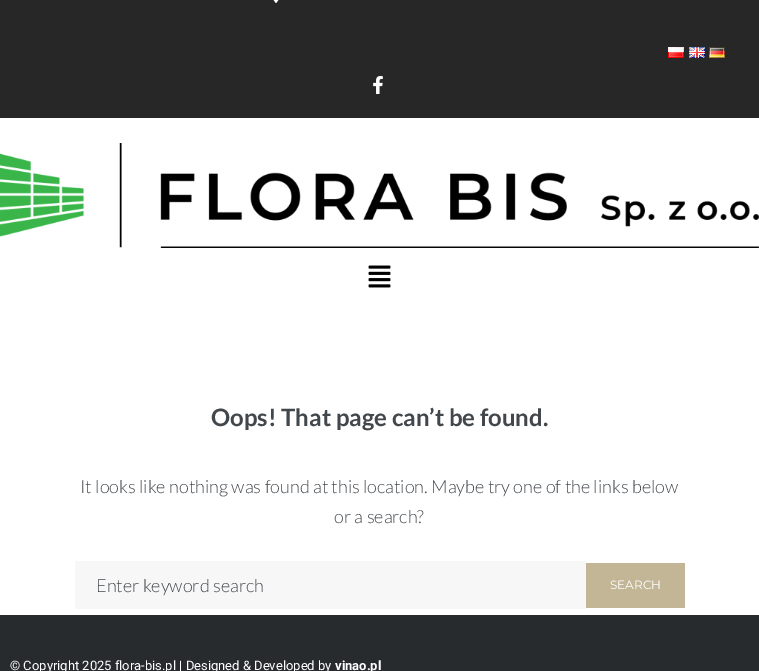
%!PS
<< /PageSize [759 671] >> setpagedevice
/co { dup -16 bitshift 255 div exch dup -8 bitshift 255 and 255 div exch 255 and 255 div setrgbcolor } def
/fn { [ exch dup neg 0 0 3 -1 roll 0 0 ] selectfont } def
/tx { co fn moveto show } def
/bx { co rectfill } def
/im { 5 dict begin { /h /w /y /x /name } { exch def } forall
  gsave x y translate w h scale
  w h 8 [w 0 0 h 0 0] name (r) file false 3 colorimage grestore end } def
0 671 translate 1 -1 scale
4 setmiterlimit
0 0 759 671 16#FFFFFF bx
0 0 759 118 16#272727 bx
(media/1.raw) 273 0 6 3 im
(media/2.raw) 668 47 16 11 im
(media/3.raw) 689 47 16 11 im
(media/4.raw) 709 47 16 11 im
(media/5.raw) 373 76 10 18 im
(media/6.raw) 0 143 759 105 im
(media/7.raw) 368 265 23 23 im
75 561 511 48 16#F7F7F7 bx
586 563 99 45 16#C2B697 bx
0 615 759 56 16#272B2E bx
(Oops! That page can’t be found.) 211 426 /Lato-Bold 24 16#42474C tx
(It looks like nothing was found at this location. Maybe try one of the links below) 80 493 /Lato-Light 18 16#42474C tx
(or a search?) 334 523 /Lato-Light 18 16#42474C tx
(Enter keyword search) 96 592 /Lato-Light 18 16#42474C tx
(SEARCH) 610 589 /Montserrat-Regular 12 16#FFFFFF tx
(© Copyright 2025 flora-bis.pl | Designed & Developed by) 10 670 /Roboto-Regular 13 16#FFFFFF tx
(vinao.pl) 335 670 /Roboto-Bold 13 16#FFFFFF tx
showpage
